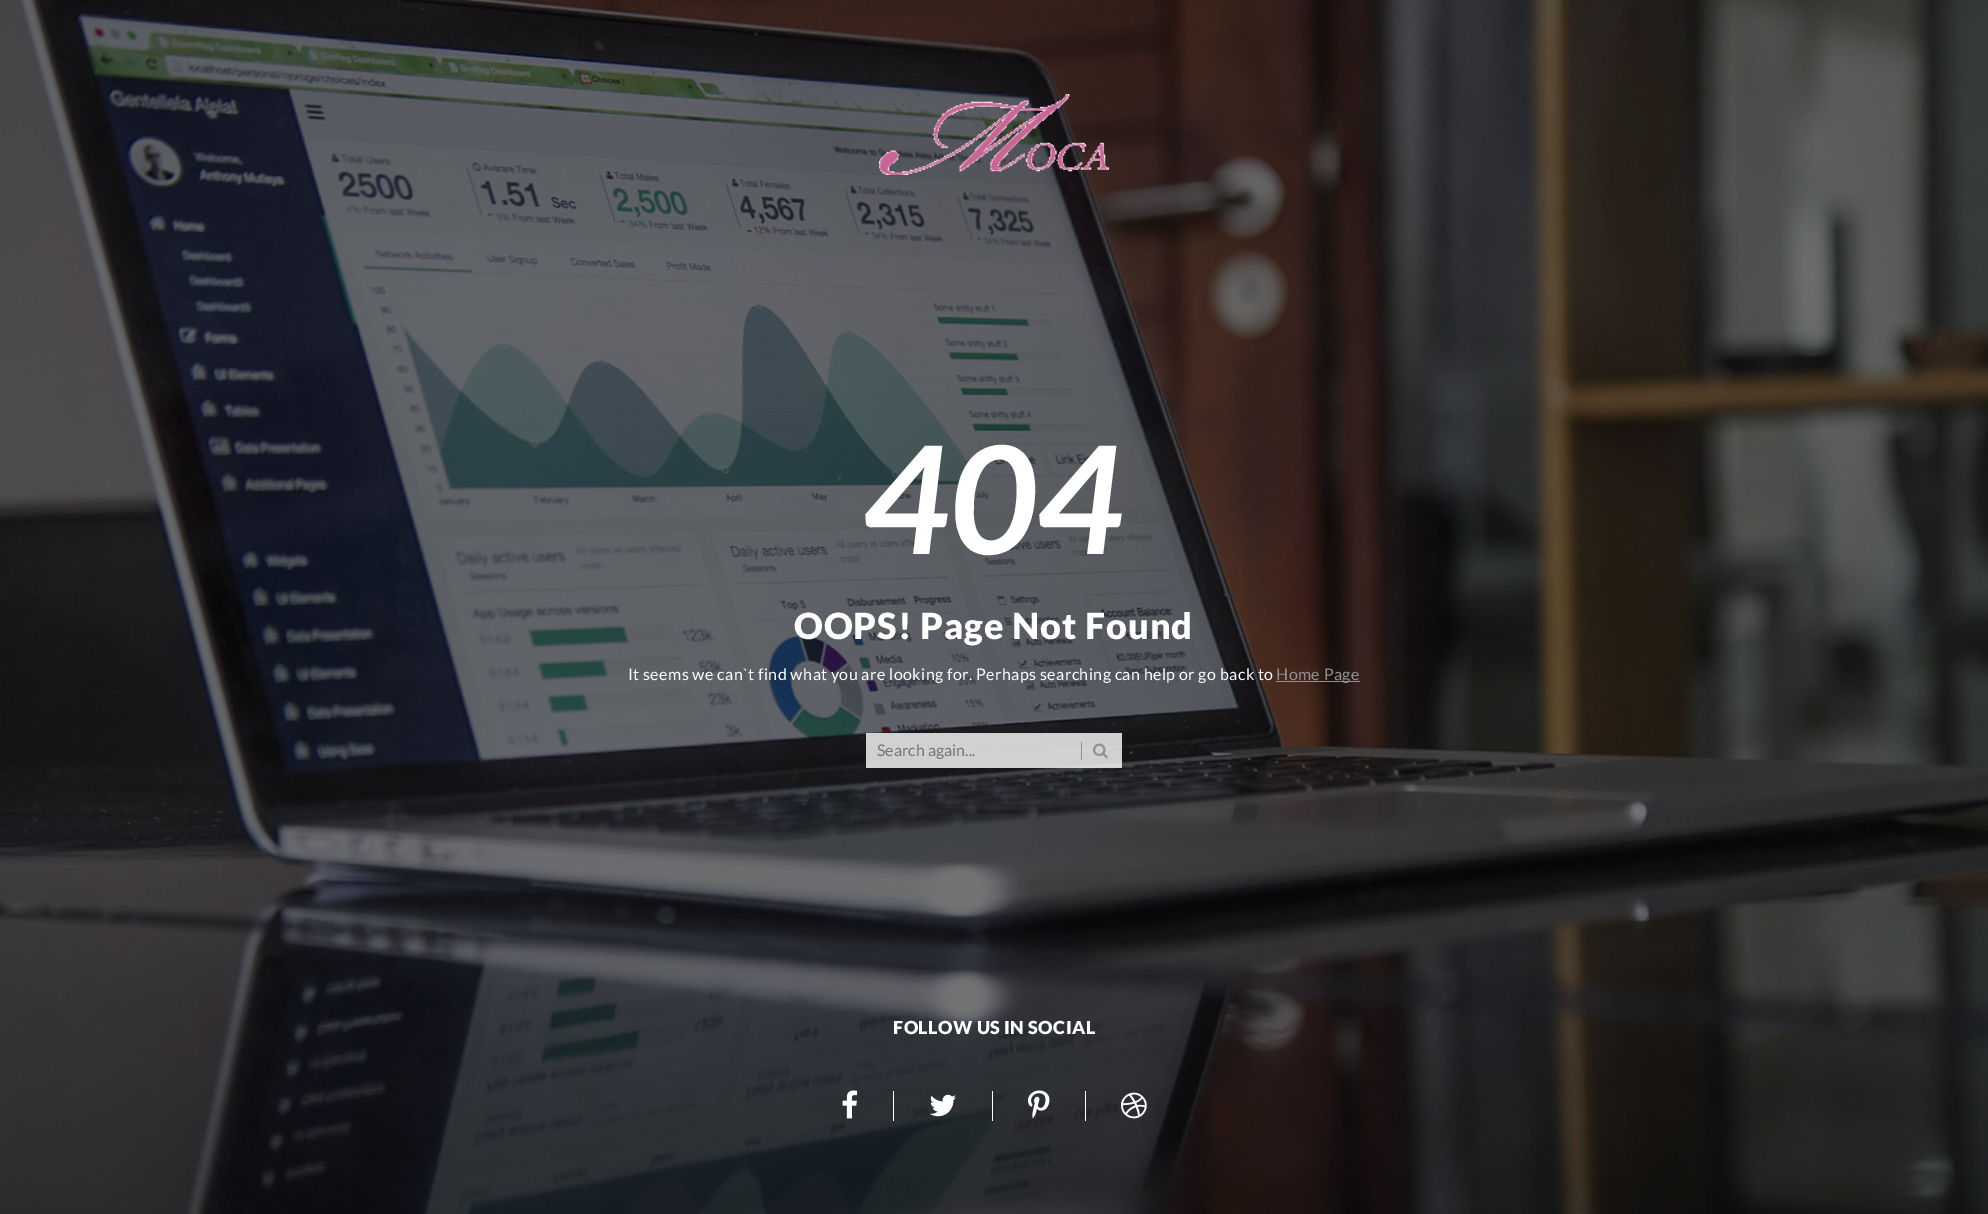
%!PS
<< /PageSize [1988 1214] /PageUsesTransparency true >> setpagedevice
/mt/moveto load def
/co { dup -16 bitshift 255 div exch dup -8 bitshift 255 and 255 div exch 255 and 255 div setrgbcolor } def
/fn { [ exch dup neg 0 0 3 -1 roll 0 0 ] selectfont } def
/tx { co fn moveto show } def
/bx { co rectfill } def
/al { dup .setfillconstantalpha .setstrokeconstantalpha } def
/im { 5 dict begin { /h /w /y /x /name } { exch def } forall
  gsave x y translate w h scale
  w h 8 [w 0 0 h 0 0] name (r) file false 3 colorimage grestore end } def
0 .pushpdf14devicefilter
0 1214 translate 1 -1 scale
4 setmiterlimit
0 0 1988 1214 16#FFFFFF bx
(media/1.raw) 0 0 1988 1214 im
(media/2.raw) 879 94 230 81 im
1276 681 84 1 16#919191 bx
0.8 al
866 733 256 35 16#FFFFFF bx
1 al
1081 742 1 18 16#919191 bx
(media/3.raw) 1093 743 15 16 im
893 1091 1 30 16#FFFFFF bx
(media/4.raw) 842 1090 16 29 im
992 1091 1 30 16#FFFFFF bx
(media/5.raw) 930 1094 26 23 im
1085 1091 1 30 16#FFFFFF bx
(media/6.raw) 1028 1090 22 29 im
(media/7.raw) 1121 1092 26 27 im
(404) 863 554 /Lato-BoldItalic 150 16#FFFFFF tx
/Lato-Black 36 fn
794 639 mt .9 0 (OOPS! Page Not Found) ashow
/Lato-Regular 16 fn
628 680 mt -.25 0 32 .45 0 (It seems we can`t find what you are looking for. Perhaps searching can help or go back to) awidthshow
16#919191 co
1276 680 mt -.25 0 32 .45 0 (Home Page) awidthshow
(Search again...) 877 756 /Lato-Regular 16 16#757575 tx
/Lato-Black 18 fn
16#FFFFFF co
893 1034 mt -.25 0 32 .5 0 (FOLLOW US IN SOCIAL) awidthshow
.poppdf14devicefilter showpage
